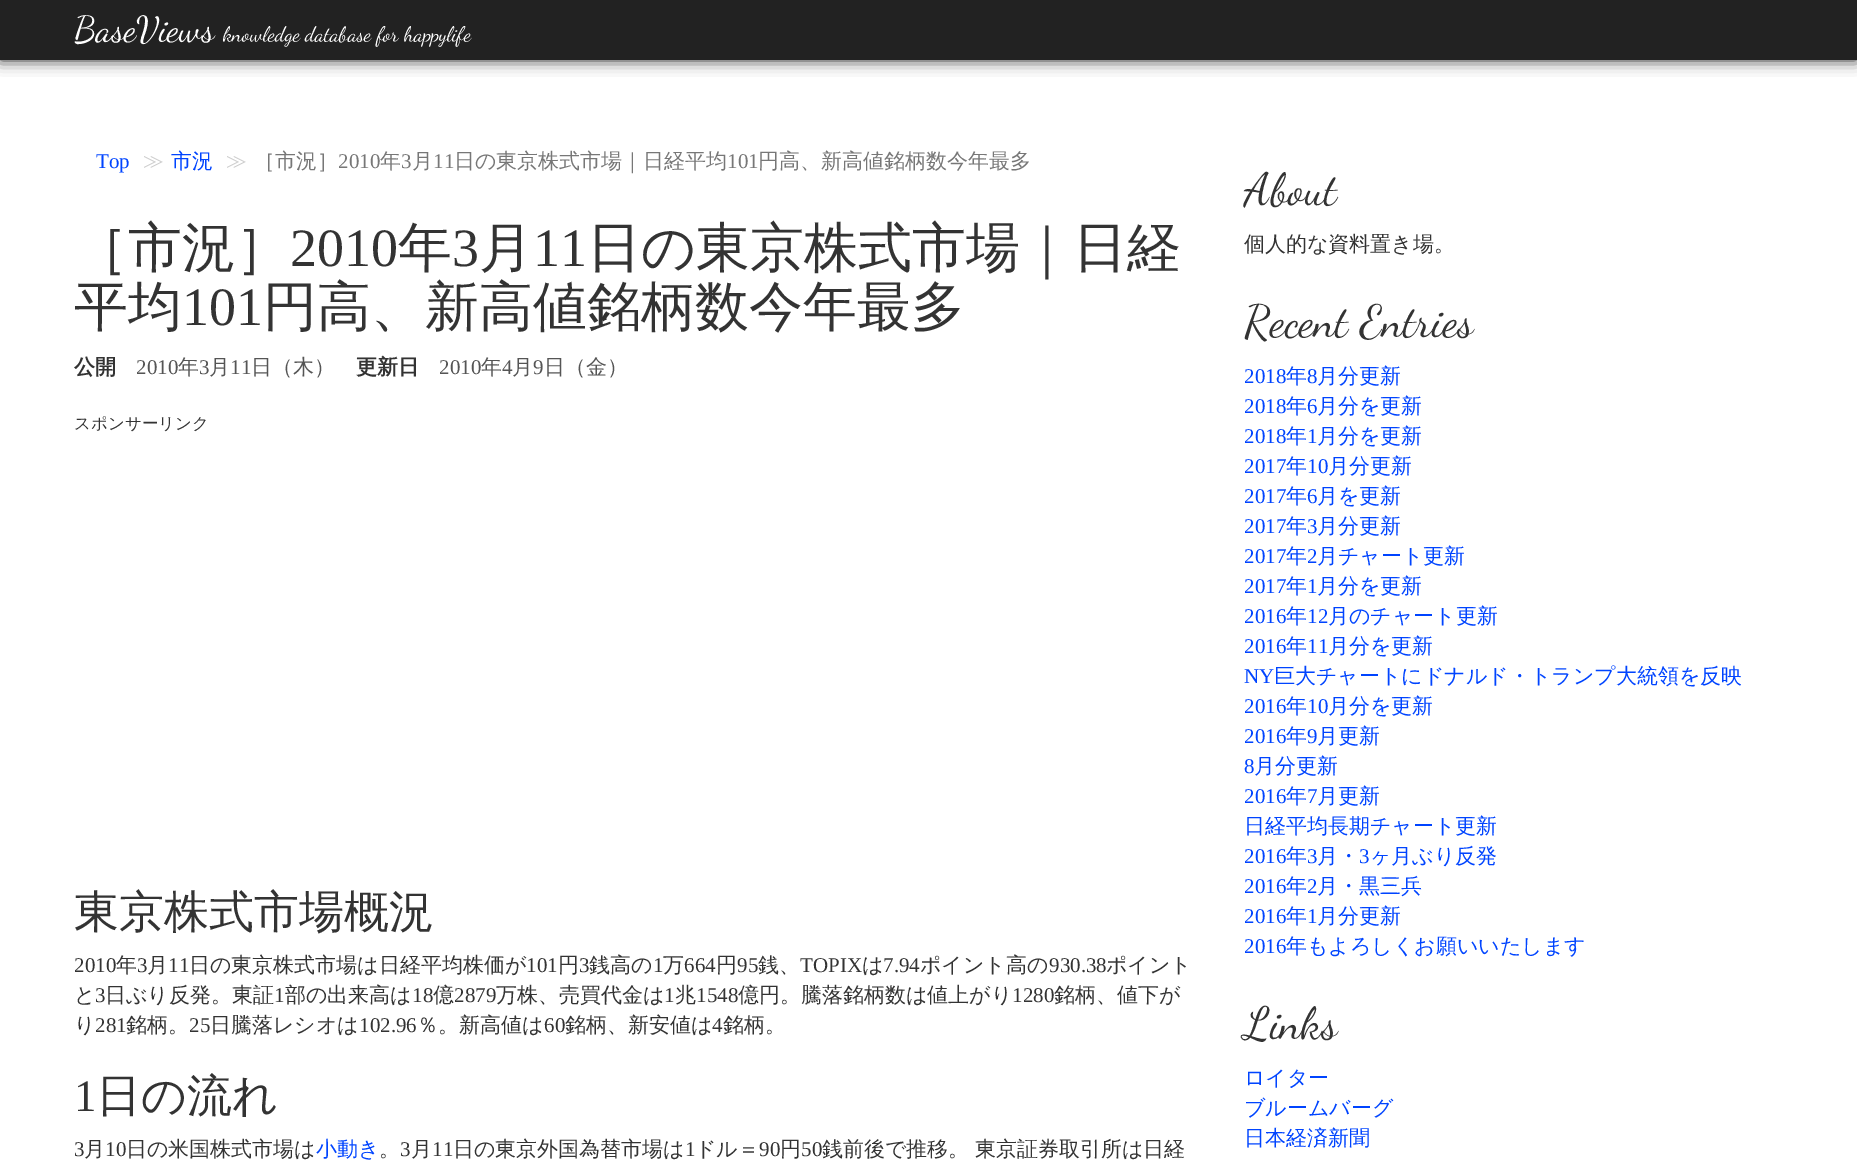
%!PS
<< /PageSize [1857 1169] /PageUsesTransparency true >> setpagedevice
/co { dup -16 bitshift 255 div exch dup -8 bitshift 255 and 255 div exch 255 and 255 div setrgbcolor } def
/fn { [ exch dup neg 0 0 3 -1 roll 0 0 ] selectfont } def
/tx { co fn moveto show } def
/bx { co rectfill } def
/al { dup .setfillconstantalpha .setstrokeconstantalpha } def
/rr { 5 dict begin { /r /h /w /y /x } { exch def } forall
  x r add y moveto x w add y 2 copy h add r arct x w add y h add x 1 index r arct
  x y h add x y r arct x y 2 copy exch w add exch r arct closepath end } def
/sh { 12 dict begin { /a /b /q /h /w /y /x } { exch def } forall gsave /was 0 def
  9 -2 -9 { dup b mul 4 div /e exch def 1 sub .425 mul 2.718 exch exp 1 add a .99 .min exch div /now exch def
    1 1 now sub 1 was sub div sub al /was now def
    w h .min e 2 mul add 0 gt { x e sub y e sub w e 2 mul add h e 2 mul add
      q e add b .6 mul add w h .min 2 div e add .min 0 .max rr fill } if } for grestore end } def
0 .pushpdf14devicefilter
0 1169 translate 1 -1 scale
4 setmiterlimit
0 0 1857 1169 16#FFFFFF bx
16#222222 co
0 0 1857 60 0 7.5 1 sh
0 0 1857 60 16#222222 bx
(BaseViews) 74 41 /DancingScript-Regular 36 16#FFFFFF tx
(knowledge database for happylife) 223 41 /DancingScript-Regular 21 16#FFFFFF tx
(Top) 96 168 /LiberationSerif-Regular 21 16#0044FF tx
(≫) 143 168 /WenQuanYiZenHei-Medium 21 16#CCCCCC tx
(市況) 171 168 /WenQuanYiZenHei-Medium 21 16#0044FF tx
(≫) 226 168 /WenQuanYiZenHei-Medium 21 16#CCCCCC tx
(［市況］) 254 168 /WenQuanYiZenHei-Medium 21 16#777777 tx
(2010) 338 168 /LiberationSerif-Regular 21 16#777777 tx
(年) 380 168 /WenQuanYiZenHei-Medium 21 16#777777 tx
(3) 401 168 /LiberationSerif-Regular 21 16#777777 tx
(月) 412 168 /WenQuanYiZenHei-Medium 21 16#777777 tx
(11) 433 168 /LiberationSerif-Regular 21 16#777777 tx
(日の東京株式市場｜日経平均) 454 168 /WenQuanYiZenHei-Medium 21 16#777777 tx
(101) 727 168 /LiberationSerif-Regular 21 16#777777 tx
(円高、新高値銘柄数今年最多) 758 168 /WenQuanYiZenHei-Medium 21 16#777777 tx
(［市況］) 74 266 /WenQuanYiZenHei-Medium 54 16#333333 tx
(2010) 290 266 /LiberationSerif-Regular 54 16#333333 tx
(年) 398 266 /WenQuanYiZenHei-Medium 54 16#333333 tx
(3) 452 266 /LiberationSerif-Regular 54 16#333333 tx
(月) 479 266 /WenQuanYiZenHei-Medium 54 16#333333 tx
(11) 533 266 /LiberationSerif-Regular 54 16#333333 tx
(日の東京株式市場｜日経) 587 266 /WenQuanYiZenHei-Medium 54 16#333333 tx
(平均) 74 325 /WenQuanYiZenHei-Medium 54 16#333333 tx
(101) 182 325 /LiberationSerif-Regular 54 16#333333 tx
(円高、新高値銘柄数今年最多) 263 325 /WenQuanYiZenHei-Medium 54 16#333333 tx
(公開) 74 374 /WenQuanYiZenHei-Bold 21 16#333333 tx
(2010) 136 374 /LiberationSerif-Regular 21 16#555555 tx
(年) 178 374 /WenQuanYiZenHei-Medium 21 16#555555 tx
(3) 199 374 /LiberationSerif-Regular 21 16#555555 tx
(月) 209 374 /WenQuanYiZenHei-Medium 21 16#555555 tx
(11) 230 374 /LiberationSerif-Regular 21 16#555555 tx
(日（木）) 251 374 /WenQuanYiZenHei-Medium 21 16#555555 tx
(更新日) 356 374 /WenQuanYiZenHei-Bold 21 16#333333 tx
(2010) 439 374 /LiberationSerif-Regular 21 16#555555 tx
(年) 481 374 /WenQuanYiZenHei-Medium 21 16#555555 tx
(4) 502 374 /LiberationSerif-Regular 21 16#555555 tx
(月) 512 374 /WenQuanYiZenHei-Medium 21 16#555555 tx
(9) 533 374 /LiberationSerif-Regular 21 16#555555 tx
(日（金）) 544 374 /WenQuanYiZenHei-Medium 21 16#555555 tx
(スポンサーリンク) 74 429 /WenQuanYiZenHei-Medium 16.5 16#333333 tx
(東京株式市場概況) 74 927 /WenQuanYiZenHei-Medium 45 16#333333 tx
(2010) 74 972 /LiberationSerif-Regular 21 16#333333 tx
(年) 116 972 /WenQuanYiZenHei-Medium 21 16#333333 tx
(3) 137 972 /LiberationSerif-Regular 21 16#333333 tx
(月) 147 972 /WenQuanYiZenHei-Medium 21 16#333333 tx
(11) 168 972 /LiberationSerif-Regular 21 16#333333 tx
(日の東京株式市場は日経平均株価が) 189 972 /WenQuanYiZenHei-Medium 21 16#333333 tx
(101) 526 972 /LiberationSerif-Regular 21 16#333333 tx
(円) 558 972 /WenQuanYiZenHei-Medium 21 16#333333 tx
(3) 579 972 /LiberationSerif-Regular 21 16#333333 tx
(銭高の) 589 972 /WenQuanYiZenHei-Medium 21 16#333333 tx
(1) 653 972 /LiberationSerif-Regular 21 16#333333 tx
(万) 663 972 /WenQuanYiZenHei-Medium 21 16#333333 tx
(664) 684 972 /LiberationSerif-Regular 21 16#333333 tx
(円) 716 972 /WenQuanYiZenHei-Medium 21 16#333333 tx
(95) 737 972 /LiberationSerif-Regular 21 16#333333 tx
(銭、) 758 972 /WenQuanYiZenHei-Medium 21 16#333333 tx
(TOPIX) 800 972 /LiberationSerif-Regular 21 16#333333 tx
(は) 862 972 /WenQuanYiZenHei-Medium 21 16#333333 tx
(7.94) 883 972 /LiberationSerif-Regular 21 16#333333 tx
(ポイント高の) 920 972 /WenQuanYiZenHei-Medium 21 16#333333 tx
(930.38) 1049 972 /LiberationSerif-Regular 21 16#333333 tx
(ポイント) 1106 972 /WenQuanYiZenHei-Medium 21 16#333333 tx
(と) 74 1002 /WenQuanYiZenHei-Medium 21 16#333333 tx
(3) 95 1002 /LiberationSerif-Regular 21 16#333333 tx
(日ぶり反発。東証) 105 1002 /WenQuanYiZenHei-Medium 21 16#333333 tx
(1) 274 1002 /LiberationSerif-Regular 21 16#333333 tx
(部の出来高は) 285 1002 /WenQuanYiZenHei-Medium 21 16#333333 tx
(18) 412 1002 /LiberationSerif-Regular 21 16#333333 tx
(億) 433 1002 /WenQuanYiZenHei-Medium 21 16#333333 tx
(2879) 454 1002 /LiberationSerif-Regular 21 16#333333 tx
(万株、売買代金は) 496 1002 /WenQuanYiZenHei-Medium 21 16#333333 tx
(1) 664 1002 /LiberationSerif-Regular 21 16#333333 tx
(兆) 675 1002 /WenQuanYiZenHei-Medium 21 16#333333 tx
(1548) 696 1002 /LiberationSerif-Regular 21 16#333333 tx
(億円。騰落銘柄数は値上がり) 738 1002 /WenQuanYiZenHei-Medium 21 16#333333 tx
(1280) 1012 1002 /LiberationSerif-Regular 21 16#333333 tx
(銘柄、値下が) 1054 1002 /WenQuanYiZenHei-Medium 21 16#333333 tx
(り) 74 1032 /WenQuanYiZenHei-Medium 21 16#333333 tx
(281) 95 1032 /LiberationSerif-Regular 21 16#333333 tx
(銘柄。) 126 1032 /WenQuanYiZenHei-Medium 21 16#333333 tx
(25) 189 1032 /LiberationSerif-Regular 21 16#333333 tx
(日騰落レシオは) 210 1032 /WenQuanYiZenHei-Medium 21 16#333333 tx
(102.96) 359 1032 /LiberationSerif-Regular 21 16#333333 tx
(％。新高値は) 417 1032 /WenQuanYiZenHei-Medium 21 16#333333 tx
(60) 544 1032 /LiberationSerif-Regular 21 16#333333 tx
(銘柄、新安値は) 565 1032 /WenQuanYiZenHei-Medium 21 16#333333 tx
(4) 712 1032 /LiberationSerif-Regular 21 16#333333 tx
(銘柄。) 723 1032 /WenQuanYiZenHei-Medium 21 16#333333 tx
(1) 74 1111 /LiberationSerif-Regular 45 16#333333 tx
(日の流れ) 96 1111 /WenQuanYiZenHei-Medium 45 16#333333 tx
(3) 74 1156 /LiberationSerif-Regular 21 16#333333 tx
(月) 84 1156 /WenQuanYiZenHei-Medium 21 16#333333 tx
(10) 105 1156 /LiberationSerif-Regular 21 16#333333 tx
(日の米国株式市場は) 126 1156 /WenQuanYiZenHei-Medium 21 16#333333 tx
(小動き) 316 1156 /WenQuanYiZenHei-Medium 21 16#0044FF tx
(。) 379 1156 /WenQuanYiZenHei-Medium 21 16#333333 tx
(3) 400 1156 /LiberationSerif-Regular 21 16#333333 tx
(月) 411 1156 /WenQuanYiZenHei-Medium 21 16#333333 tx
(11) 432 1156 /LiberationSerif-Regular 21 16#333333 tx
(日の東京外国為替市場は) 453 1156 /WenQuanYiZenHei-Medium 21 16#333333 tx
(1) 685 1156 /LiberationSerif-Regular 21 16#333333 tx
(ドル＝) 695 1156 /WenQuanYiZenHei-Medium 21 16#333333 tx
(90) 759 1156 /LiberationSerif-Regular 21 16#333333 tx
(円) 780 1156 /WenQuanYiZenHei-Medium 21 16#333333 tx
(50) 801 1156 /LiberationSerif-Regular 21 16#333333 tx
(銭前後で推移。) 822 1156 /WenQuanYiZenHei-Medium 21 16#333333 tx
(東京証券取引所は日経) 975 1156 /WenQuanYiZenHei-Medium 21 16#333333 tx
(About) 1244 204 /DancingScript-Regular 45 16#333333 tx
(個人的な資料置き場。) 1244 251 /WenQuanYiZenHei-Medium 21 16#333333 tx
(Recent Entries) 1244 336 /DancingScript-Regular 45 16#333333 tx
(2018) 1244 383 /LiberationSerif-Regular 21 16#0044FF tx
(年) 1286 383 /WenQuanYiZenHei-Medium 21 16#0044FF tx
(8) 1307 383 /LiberationSerif-Regular 21 16#0044FF tx
(月分更新) 1317 383 /WenQuanYiZenHei-Medium 21 16#0044FF tx
(2018) 1244 413 /LiberationSerif-Regular 21 16#0044FF tx
(年) 1286 413 /WenQuanYiZenHei-Medium 21 16#0044FF tx
(6) 1307 413 /LiberationSerif-Regular 21 16#0044FF tx
(月分を更新) 1317 413 /WenQuanYiZenHei-Medium 21 16#0044FF tx
(2018) 1244 443 /LiberationSerif-Regular 21 16#0044FF tx
(年) 1286 443 /WenQuanYiZenHei-Medium 21 16#0044FF tx
(1) 1307 443 /LiberationSerif-Regular 21 16#0044FF tx
(月分を更新) 1317 443 /WenQuanYiZenHei-Medium 21 16#0044FF tx
(2017) 1244 473 /LiberationSerif-Regular 21 16#0044FF tx
(年) 1286 473 /WenQuanYiZenHei-Medium 21 16#0044FF tx
(10) 1307 473 /LiberationSerif-Regular 21 16#0044FF tx
(月分更新) 1328 473 /WenQuanYiZenHei-Medium 21 16#0044FF tx
(2017) 1244 503 /LiberationSerif-Regular 21 16#0044FF tx
(年) 1286 503 /WenQuanYiZenHei-Medium 21 16#0044FF tx
(6) 1307 503 /LiberationSerif-Regular 21 16#0044FF tx
(月を更新) 1317 503 /WenQuanYiZenHei-Medium 21 16#0044FF tx
(2017) 1244 533 /LiberationSerif-Regular 21 16#0044FF tx
(年) 1286 533 /WenQuanYiZenHei-Medium 21 16#0044FF tx
(3) 1307 533 /LiberationSerif-Regular 21 16#0044FF tx
(月分更新) 1317 533 /WenQuanYiZenHei-Medium 21 16#0044FF tx
(2017) 1244 563 /LiberationSerif-Regular 21 16#0044FF tx
(年) 1286 563 /WenQuanYiZenHei-Medium 21 16#0044FF tx
(2) 1307 563 /LiberationSerif-Regular 21 16#0044FF tx
(月チャート更新) 1317 563 /WenQuanYiZenHei-Medium 21 16#0044FF tx
(2017) 1244 593 /LiberationSerif-Regular 21 16#0044FF tx
(年) 1286 593 /WenQuanYiZenHei-Medium 21 16#0044FF tx
(1) 1307 593 /LiberationSerif-Regular 21 16#0044FF tx
(月分を更新) 1317 593 /WenQuanYiZenHei-Medium 21 16#0044FF tx
(2016) 1244 623 /LiberationSerif-Regular 21 16#0044FF tx
(年) 1286 623 /WenQuanYiZenHei-Medium 21 16#0044FF tx
(12) 1307 623 /LiberationSerif-Regular 21 16#0044FF tx
(月のチャート更新) 1328 623 /WenQuanYiZenHei-Medium 21 16#0044FF tx
(2016) 1244 653 /LiberationSerif-Regular 21 16#0044FF tx
(年) 1286 653 /WenQuanYiZenHei-Medium 21 16#0044FF tx
(11) 1307 653 /LiberationSerif-Regular 21 16#0044FF tx
(月分を更新) 1328 653 /WenQuanYiZenHei-Medium 21 16#0044FF tx
(NY) 1244 683 /LiberationSerif-Regular 21 16#0044FF tx
(巨大チャートにドナルド・トランプ大統領を反映) 1274 683 /WenQuanYiZenHei-Medium 21 16#0044FF tx
(2016) 1244 713 /LiberationSerif-Regular 21 16#0044FF tx
(年) 1286 713 /WenQuanYiZenHei-Medium 21 16#0044FF tx
(10) 1307 713 /LiberationSerif-Regular 21 16#0044FF tx
(月分を更新) 1328 713 /WenQuanYiZenHei-Medium 21 16#0044FF tx
(2016) 1244 743 /LiberationSerif-Regular 21 16#0044FF tx
(年) 1286 743 /WenQuanYiZenHei-Medium 21 16#0044FF tx
(9) 1307 743 /LiberationSerif-Regular 21 16#0044FF tx
(月更新) 1317 743 /WenQuanYiZenHei-Medium 21 16#0044FF tx
(8) 1244 773 /LiberationSerif-Regular 21 16#0044FF tx
(月分更新) 1254 773 /WenQuanYiZenHei-Medium 21 16#0044FF tx
(2016) 1244 803 /LiberationSerif-Regular 21 16#0044FF tx
(年) 1286 803 /WenQuanYiZenHei-Medium 21 16#0044FF tx
(7) 1307 803 /LiberationSerif-Regular 21 16#0044FF tx
(月更新) 1317 803 /WenQuanYiZenHei-Medium 21 16#0044FF tx
(日経平均長期チャート更新) 1244 833 /WenQuanYiZenHei-Medium 21 16#0044FF tx
(2016) 1244 863 /LiberationSerif-Regular 21 16#0044FF tx
(年) 1286 863 /WenQuanYiZenHei-Medium 21 16#0044FF tx
(3) 1307 863 /LiberationSerif-Regular 21 16#0044FF tx
(月・) 1317 863 /WenQuanYiZenHei-Medium 21 16#0044FF tx
(3) 1359 863 /LiberationSerif-Regular 21 16#0044FF tx
(ヶ月ぶり反発) 1370 863 /WenQuanYiZenHei-Medium 21 16#0044FF tx
(2016) 1244 893 /LiberationSerif-Regular 21 16#0044FF tx
(年) 1286 893 /WenQuanYiZenHei-Medium 21 16#0044FF tx
(2) 1307 893 /LiberationSerif-Regular 21 16#0044FF tx
(月・黒三兵) 1317 893 /WenQuanYiZenHei-Medium 21 16#0044FF tx
(2016) 1244 923 /LiberationSerif-Regular 21 16#0044FF tx
(年) 1286 923 /WenQuanYiZenHei-Medium 21 16#0044FF tx
(1) 1307 923 /LiberationSerif-Regular 21 16#0044FF tx
(月分更新) 1317 923 /WenQuanYiZenHei-Medium 21 16#0044FF tx
(2016) 1244 953 /LiberationSerif-Regular 21 16#0044FF tx
(年もよろしくお願いいたします) 1286 953 /WenQuanYiZenHei-Medium 21 16#0044FF tx
(Links) 1244 1038 /DancingScript-Regular 45 16#333333 tx
(ロイター) 1244 1085 /WenQuanYiZenHei-Medium 21 16#0044FF tx
(ブルームバーグ) 1244 1115 /WenQuanYiZenHei-Medium 21 16#0044FF tx
(日本経済新聞) 1244 1145 /WenQuanYiZenHei-Medium 21 16#0044FF tx
.poppdf14devicefilter showpage
